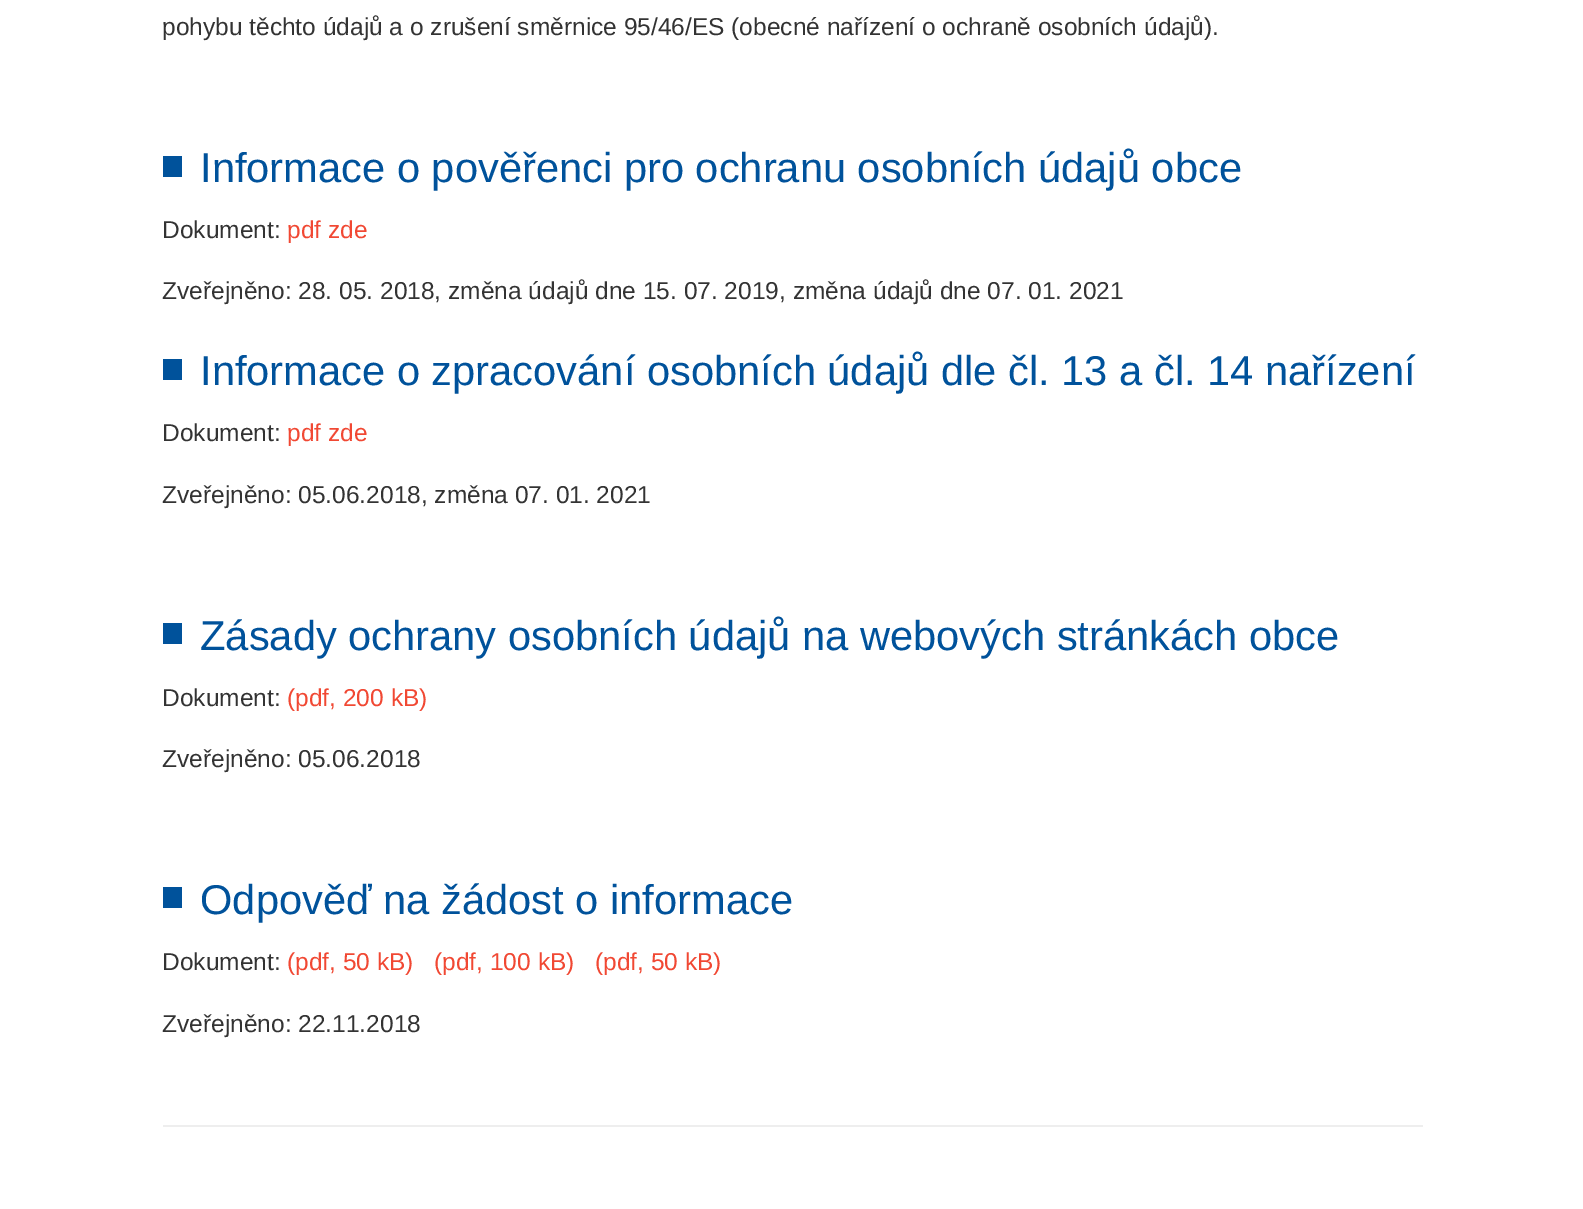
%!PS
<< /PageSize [1583 1209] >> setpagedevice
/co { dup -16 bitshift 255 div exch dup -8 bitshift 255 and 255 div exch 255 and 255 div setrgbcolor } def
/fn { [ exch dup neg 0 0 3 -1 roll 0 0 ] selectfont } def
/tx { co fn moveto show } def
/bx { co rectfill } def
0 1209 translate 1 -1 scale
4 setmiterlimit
0 0 1583 1209 16#FFFFFF bx
163 156 19 21 16#00529B bx
163 359 19 21 16#00529B bx
163 623 19 21 16#00529B bx
163 887 19 21 16#00529B bx
163 1125 1260 2 16#EEEEEE bx
(pohybu těchto údajů a o zrušení směrnice 95/46/ES \(obecné nařízení o ochraně osobních údajů\).) 162 35 /LiberationSans-Regular 24.5 16#333333 tx
(Informace o pověřenci pro ochranu osobních údajů obce) 200 182 /LiberationSans-Regular 41.65 16#00529B tx
(Dokument:) 162 238 /LiberationSans-Regular 24.5 16#333333 tx
(pdf zde) 287 238 /LiberationSans-Regular 24.5 16#F14833 tx
(Zveřejněno: 28. 05. 2018, změna údajů dne 15. 07. 2019, změna údajů dne 07. 01. 2021) 162 299 /LiberationSans-Regular 24.5 16#333333 tx
(Informace o zpracování osobních údajů dle čl. 13 a čl. 14 nařízení) 200 385 /LiberationSans-Regular 41.65 16#00529B tx
(Dokument:) 162 441 /LiberationSans-Regular 24.5 16#333333 tx
(pdf zde) 287 441 /LiberationSans-Regular 24.5 16#F14833 tx
(Zveřejněno: 05.06.2018, změna 07. 01. 2021) 162 503 /LiberationSans-Regular 24.5 16#333333 tx
(Zásady ochrany osobních údajů na webových stránkách obce) 200 650 /LiberationSans-Regular 41.65 16#00529B tx
(Dokument:) 162 706 /LiberationSans-Regular 24.5 16#333333 tx
(\(pdf, 200 kB\)) 287 706 /LiberationSans-Regular 24.5 16#F14833 tx
(Zveřejněno: 05.06.2018) 162 767 /LiberationSans-Regular 24.5 16#333333 tx
(Odpověď na žádost o informace) 200 914 /LiberationSans-Regular 41.65 16#00529B tx
(Dokument:) 162 970 /LiberationSans-Regular 24.5 16#333333 tx
(\(pdf, 50 kB\)) 287 970 /LiberationSans-Regular 24.5 16#F14833 tx
(\(pdf, 100 kB\)) 434 970 /LiberationSans-Regular 24.5 16#F14833 tx
(\(pdf, 50 kB\)) 595 970 /LiberationSans-Regular 24.5 16#F14833 tx
(Zveřejněno: 22.11.2018) 162 1032 /LiberationSans-Regular 24.5 16#333333 tx
showpage
